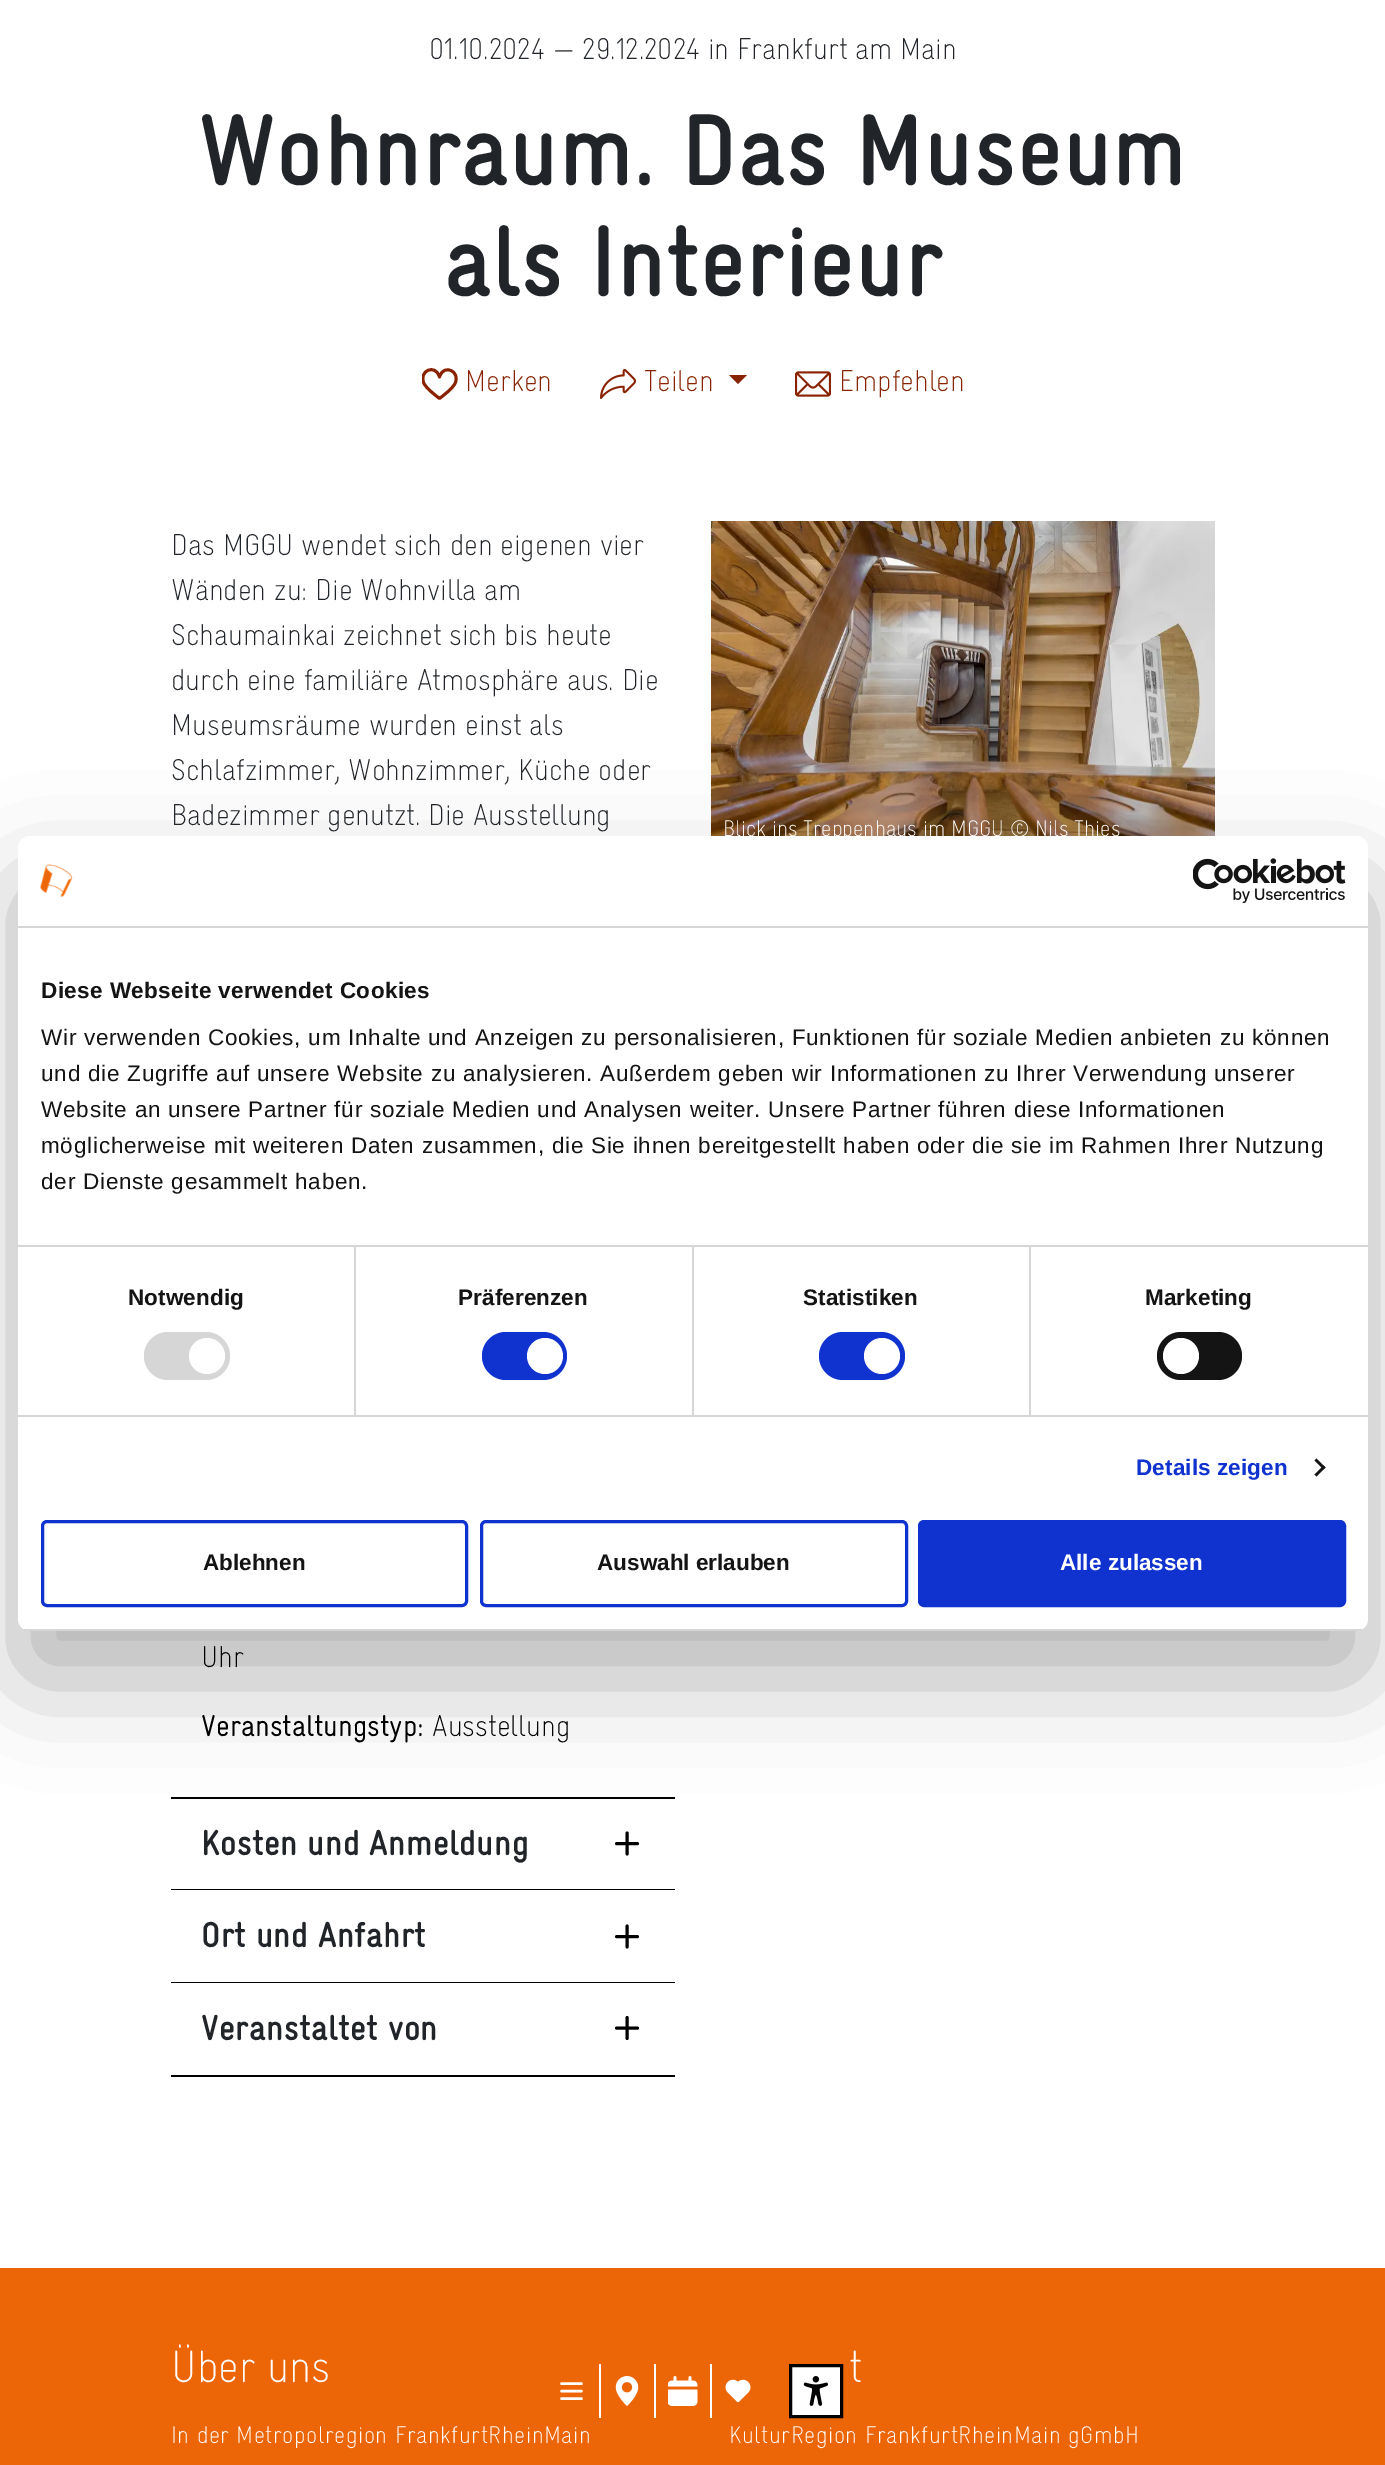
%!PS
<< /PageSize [1385 2465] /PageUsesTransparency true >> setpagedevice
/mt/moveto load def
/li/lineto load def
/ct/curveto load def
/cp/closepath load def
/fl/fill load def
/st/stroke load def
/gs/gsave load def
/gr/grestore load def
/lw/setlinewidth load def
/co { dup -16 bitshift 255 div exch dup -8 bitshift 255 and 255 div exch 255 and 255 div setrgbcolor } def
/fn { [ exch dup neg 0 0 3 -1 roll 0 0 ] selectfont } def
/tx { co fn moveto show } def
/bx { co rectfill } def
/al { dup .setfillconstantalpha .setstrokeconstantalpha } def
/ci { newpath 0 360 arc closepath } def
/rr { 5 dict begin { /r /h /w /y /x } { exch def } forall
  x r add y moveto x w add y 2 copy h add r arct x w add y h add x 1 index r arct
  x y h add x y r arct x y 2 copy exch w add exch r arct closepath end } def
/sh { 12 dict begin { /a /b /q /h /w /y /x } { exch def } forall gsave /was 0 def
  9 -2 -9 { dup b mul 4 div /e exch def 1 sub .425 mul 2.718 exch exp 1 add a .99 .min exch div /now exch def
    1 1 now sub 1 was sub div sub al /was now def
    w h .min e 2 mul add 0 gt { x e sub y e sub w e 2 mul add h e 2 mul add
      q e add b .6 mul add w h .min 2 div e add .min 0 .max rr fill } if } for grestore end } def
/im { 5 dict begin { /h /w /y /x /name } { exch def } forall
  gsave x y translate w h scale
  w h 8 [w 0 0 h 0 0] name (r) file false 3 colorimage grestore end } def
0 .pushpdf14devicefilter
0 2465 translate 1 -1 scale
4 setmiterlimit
0 0 1385 2465 16#FFFFFF bx
gs
422 366 36 36 rectclip
16#882201 co
2.9 lw
1 setlinecap
1 setlinejoin
439.5 377 mt 443.5 363 461 371.5 455 383.5 ct 452 389 444.5 394.5 439.5 398.5 ct 434.5 394.5 427 389 424 383.5 ct 418 371 435.5 363 439.5 377 ct cp st
gr
(media/1.raw) 600 369 36 30 im
16#882201 co
729 375 mt 747 375 li 738 384 li cp fl
(media/2.raw) 795 371 36 26 im
171 1797 504 2 16#000000 bx
171 1889 504 1 16#000000 bx
3 lw
1 setlinecap
1 setlinejoin
627 1833 mt 627 1854 li 616.5 1843.5 mt 637.5 1843.5 li st
171 1982 504 1 16#000000 bx
627 1926 mt 627 1947 li 616.5 1936.5 mt 637.5 1936.5 li st
171 2075 504 2 16#000000 bx
627 2017.5 mt 627 2038.5 li 616.5 2028 mt 637.5 2028 li st
(media/3.raw) 711 521 504 315 im
18 884 1350 795 12 51 .3 sh
16#FFFFFF co
18 836 1350 795 12 rr fl
18 926 1350 2 16#D6D6D6 bx
(media/4.raw) 40 864 33 33 im
(media/5.raw) 1193 858 153 45 im
18 1245 1350 2 16#D6D6D6 bx
18 1415 1350 2 16#D6D6D6 bx
354 1247 2 168 16#D6D6D6 bx
144 1332 86 48 24 rr fl
16#FFFFFF co
207 1356 18 ci fl
692 1247 2 168 16#D6D6D6 bx
16#1032CF co
482 1332 85 48 24 rr fl
16#FFFFFF co
545 1356 18 ci fl
1029 1247 2 168 16#D6D6D6 bx
16#1032CF co
819 1332 86 48 24 rr fl
16#FFFFFF co
882 1356 18 ci fl
16#141414 co
1157 1332 85 48 24 rr fl
16#FFFFFF co
1181 1356 18 ci fl
16#141414 co
1316.5 1458.5 mt 1325.5 1467.5 li 1323.5 1469.5 li 1314.5 1460.5 li cp fl
1323.5 1465.5 mt 1325.5 1467.5 li 1316.5 1476.5 li 1314.5 1474.5 li cp fl
gs
18 836 1350 795 12 rr clip newpath
18 1629 1350 2 16#D6D6D6 bx
gr
16#1032CF co
0 setlinecap
0 setlinejoin
42.5 1521.5 424 84 4.5 rr st
481.5 1521.5 425 84 4.5 rr st
919.5 1521.5 425 84 4.5 rr gs fl gr
st
0 2268 1385 197 16#EC6608 bx
16#FFFFFF co
2.5 lw
1 setlinecap
1 setlinejoin
561.5 2383.5 mt 581.5 2383.5 li 561.5 2391 mt 581.5 2391 li 561.5 2398.5 mt 581.5 2398.5 li st
599 2364 2 54 16#FFFFFF bx
(media/6.raw) 615 2376 24 30 im
654 2364 2 54 16#FFFFFF bx
(media/7.raw) 668 2376 30 30 im
710 2364 2 54 16#FFFFFF bx
(media/8.raw) 725 2379 26 24 im
792 2367 48 48 16#FFFFFF bx
(media/9.raw) 803 2376 25 30 im
16#000000 co
3 lw
0 setlinecap
0 setlinejoin
790.5 2365.5 51 51 rectstroke
(01.10.2024 — 29.12.2024 in Frankfurt am Main) 429 59 /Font-Light 30 16#212529 tx
(Wohnraum. Das Museum) 198 185 /Font-Bold 101.4 16#212529 tx
(als Interieur) 444 296 /Font-Bold 101.4 16#212529 tx
(Merken) 465 391 /Font-Light 30 16#882201 tx
(Teilen) 644 391 /Font-Light 30 16#882201 tx
(Empfehlen) 839 391 /Font-Light 30 16#882201 tx
(Das MGGU wendet sich den eigenen vier) 171 555 /Font-Light 30 16#212529 tx
(Wänden zu: Die Wohnvilla am) 171 600 /Font-Light 30 16#212529 tx
(Schaumainkai zeichnet sich bis heute) 171 645 /Font-Light 30 16#212529 tx
(durch eine familiäre Atmosphäre aus. Die) 171 690 /Font-Light 30 16#212529 tx
(Museumsräume wurden einst als) 171 735 /Font-Light 30 16#212529 tx
(Schlafzimmer, Wohnzimmer, Küche oder) 171 780 /Font-Light 30 16#212529 tx
(Badezimmer genutzt. Die Ausstellung) 171 825 /Font-Light 30 16#212529 tx
(Uhr) 201 1667 /Font-Light 30 16#000000 tx
(Veranstaltungstyp:) 201 1736 /Font-Regular 30 16#000000 tx
(Ausstellung) 432 1736 /Font-Light 30 16#000000 tx
(Kosten und Anmeldung) 201 1855 /Font-Bold 36 16#212529 tx
(Ort und Anfahrt) 201 1947 /Font-Bold 36 16#212529 tx
(Veranstaltet von) 201 2040 /Font-Bold 36 16#212529 tx
(Blick ins Treppenhaus im MGGU © Nils Thies) 723 836 /Font-Light 22.5 16#FFFFFF tx
/LiberationSans-Bold 22.5 fn
16#141414 co
41 998 mt .4 0 (Diese Webseite verwendet Cookies) ashow
/LiberationSans-Regular 22.5 fn
41 1045 mt .75 0 (Wir verwenden Cookies, um Inhalte und Anzeigen zu personalisieren, Funktionen für soziale Medien anbieten zu können) ashow
41 1081 mt .75 0 (und die Zugriffe auf unsere Website zu analysieren. Außerdem geben wir Informationen zu Ihrer Verwendung unserer) ashow
41 1117 mt .75 0 (Website an unsere Partner für soziale Medien und Analysen weiter. Unsere Partner führen diese Informationen) ashow
41 1153 mt .75 0 (möglicherweise mit weiteren Daten zusammen, die Sie ihnen bereitgestellt haben oder die sie im Rahmen Ihrer Nutzung) ashow
41 1189 mt .75 0 (der Dienste gesammelt haben.) ashow
/LiberationSans-Bold 22.5 fn
128 1305 mt .1 0 (Notwendig) ashow
458 1305 mt .1 0 (Präferenzen) ashow
803 1305 mt .1 0 (Statistiken) ashow
1145 1305 mt .1 0 (Marketing) ashow
16#1032CF co
1136 1475 mt .1 0 (Details zeigen) ashow
(Ablehnen) 203 1570 /LiberationSans-Bold 22.5 16#141414 tx
(Auswahl erlauben) 597 1570 /LiberationSans-Bold 22.5 16#141414 tx
(Alle zulassen) 1060 1570 /LiberationSans-Bold 22.5 16#FFFFFF tx
(Über uns) 171 2382 /Font-Light 45 16#FFFFFF tx
/Font-Light 24 fn
171 2443 mt .6 0 (In der Metropolregion FrankfurtRheinMain) ashow
(t) 849 2382 /Font-Light 45 16#FFFFFF tx
/Font-Light 24 fn
729 2443 mt .6 0 (KulturRegion FrankfurtRheinMain gGmbH) ashow
.poppdf14devicefilter showpage
